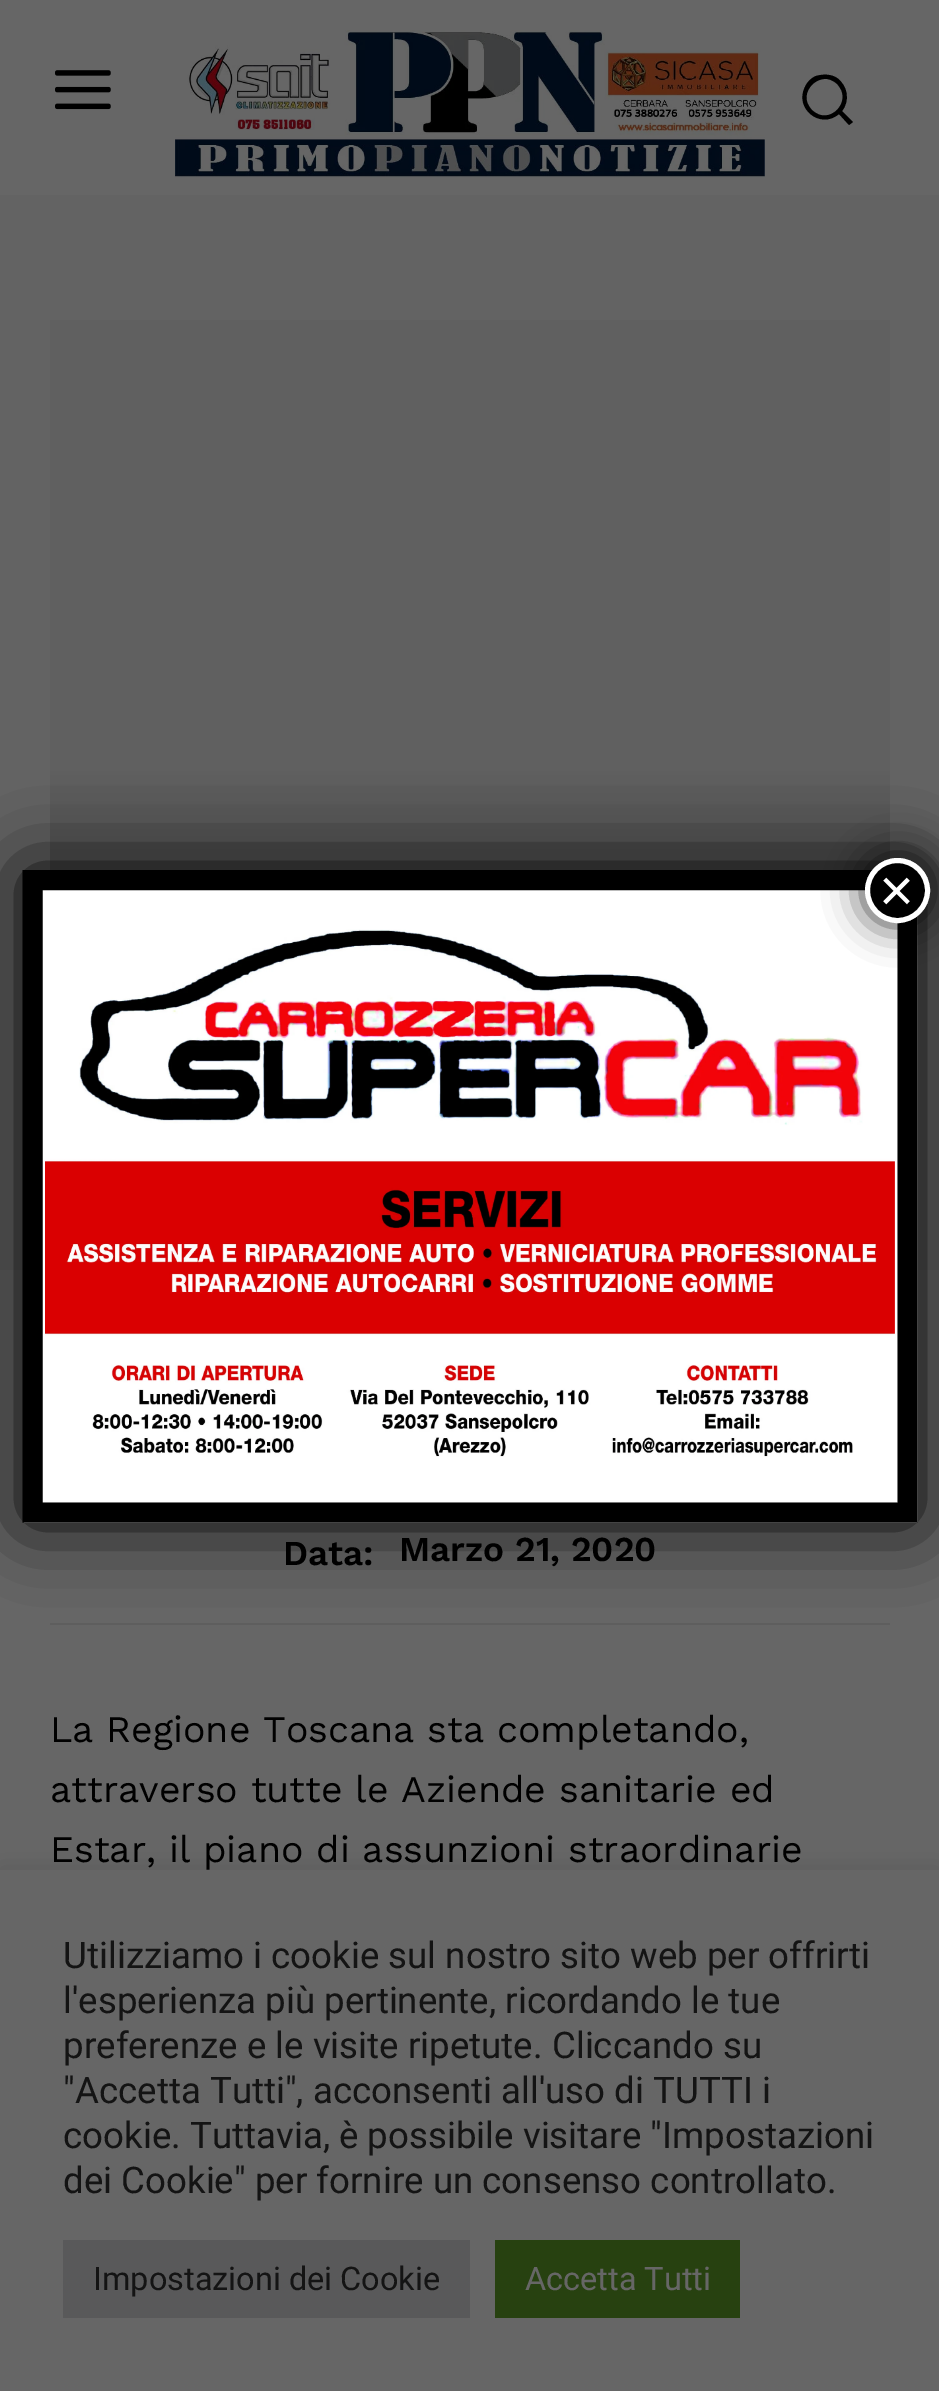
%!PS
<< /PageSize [939 2391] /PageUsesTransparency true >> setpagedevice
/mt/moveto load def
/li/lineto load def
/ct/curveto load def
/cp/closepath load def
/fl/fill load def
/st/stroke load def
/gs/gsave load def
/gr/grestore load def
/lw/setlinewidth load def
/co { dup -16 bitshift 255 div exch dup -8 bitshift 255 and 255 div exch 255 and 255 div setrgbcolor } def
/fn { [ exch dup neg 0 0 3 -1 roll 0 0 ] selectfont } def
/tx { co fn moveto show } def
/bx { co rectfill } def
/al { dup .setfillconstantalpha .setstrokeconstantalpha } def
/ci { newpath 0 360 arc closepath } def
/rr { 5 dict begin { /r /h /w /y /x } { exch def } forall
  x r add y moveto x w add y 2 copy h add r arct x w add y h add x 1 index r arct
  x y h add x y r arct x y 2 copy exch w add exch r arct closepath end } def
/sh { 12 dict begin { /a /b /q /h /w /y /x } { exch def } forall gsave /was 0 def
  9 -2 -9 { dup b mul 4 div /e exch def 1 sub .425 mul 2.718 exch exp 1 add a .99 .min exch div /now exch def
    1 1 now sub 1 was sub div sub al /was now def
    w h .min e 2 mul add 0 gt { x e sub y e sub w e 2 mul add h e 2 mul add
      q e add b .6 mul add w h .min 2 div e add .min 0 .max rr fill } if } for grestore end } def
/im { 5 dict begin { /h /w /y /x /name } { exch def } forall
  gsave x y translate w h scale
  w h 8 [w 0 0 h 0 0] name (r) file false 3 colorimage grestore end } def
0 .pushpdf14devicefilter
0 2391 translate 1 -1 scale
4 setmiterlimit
0 0 939 2391 16#666666 bx
0 195 939 1075 16#636363 bx
gs 50 320 mt 890 320 li 890 870 li 50 870 li cp clip newpath
<< /ShadingType 2 /ColorSpace /DeviceRGB /Coords [470 1470 470 320] /Extend [true true] /Function << /FunctionType 3 /Domain [0 1] /Functions [<< /FunctionType 2 /Domain [0 1] /C0 [.149 .149 .149] /C1 [.263 .263 .263] /N 1 >> << /FunctionType 2 /Domain [0 1] /C0 [.263 .263 .263] /C1 [.376 .376 .376] /N 1 >> << /FunctionType 2 /Domain [0 1] /C0 [.376 .376 .376] /C1 [.376 .376 .376] /N 1 >>] /Bounds [.42 .61] /Encode [0 1 0 1 0 1] >> >> shfill gr
50 1623 840 2 16#5E5E5E bx
16#020202 co
23 870 895 653 2.5 37.5 1 sh
16#FFFFFF co
23 870 895 653 2.5 rr fl
16#000000 co
20 lw
32.5 880 mt 907.5 880 li 907.5 1512.5 li 32.5 1512.5 li cp st
(media/1.raw) 45 929 850 528 im
16#020202 co
863 855 70 70 35 19 .75 sh
16#000000 co
897.5 890.5 30 ci gs fl gr
16#FFFFFF co
5 lw
st
(media/2.raw) 55 70 56 40 im
(media/3.raw) 175 30 590 148 im
16#000000 co
853 122 mt 842 111 li 850 101 848 86 837 78 ct 831 74 823 74 816 76 ct 811 78 807 82 805 87 ct 794 108 820 130 839 114 ct 849 125 li cp 812 110 mt 795 93 821 68 837 84 ct 854 101 829 127 812 110 ct cp fl
16#454444 co
0 1868 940 522 0 12.5 .3 sh
0 1870 939 521 16#666666 bx
63 2240 407 78 16#59595A bx
495 2240 245 78 16#274110 bx
(×) 879 911 /LiberationSans-Regular 60 16#FFFFFF tx
(Data:) 283 1565 /WorkSans-SemiBold 35 16#000000 tx
(Marzo 21, 2020) 399 1561 /WorkSans-SemiBold 35 16#000000 tx
(La Regione Toscana sta completando,) 50 1742 /WorkSans-Regular 37.5 16#000000 tx
(attraverso tutte le Aziende sanitarie ed) 50 1802 /WorkSans-Regular 37.5 16#000000 tx
(Estar, il piano di assunzioni straordinarie) 50 1862 /WorkSans-Regular 37.5 16#000000 tx
(Utilizziamo i cookie sul nostro sito web per offrirti) 63 1968 /Roboto-Regular 36.7 16#141414 tx
(l'esperienza più pertinente, ricordando le tue) 63 2013 /Roboto-Regular 36.7 16#141414 tx
(preferenze e le visite ripetute. Cliccando su) 63 2058 /Roboto-Regular 36.7 16#141414 tx
("Accetta Tutti", acconsenti all'uso di TUTTI i) 63 2103 /Roboto-Regular 36.7 16#141414 tx
(cookie. Tuttavia, è possibile visitare "Impostazioni) 63 2148 /Roboto-Regular 36.7 16#141414 tx
(dei Cookie" per fornire un consenso controllato.) 63 2193 /Roboto-Regular 36.7 16#141414 tx
(Impostazioni dei Cookie) 93 2290 /Roboto-Regular 32.5 16#141414 tx
(Accetta Tutti) 525 2290 /Roboto-Regular 32.5 16#666666 tx
.poppdf14devicefilter showpage
